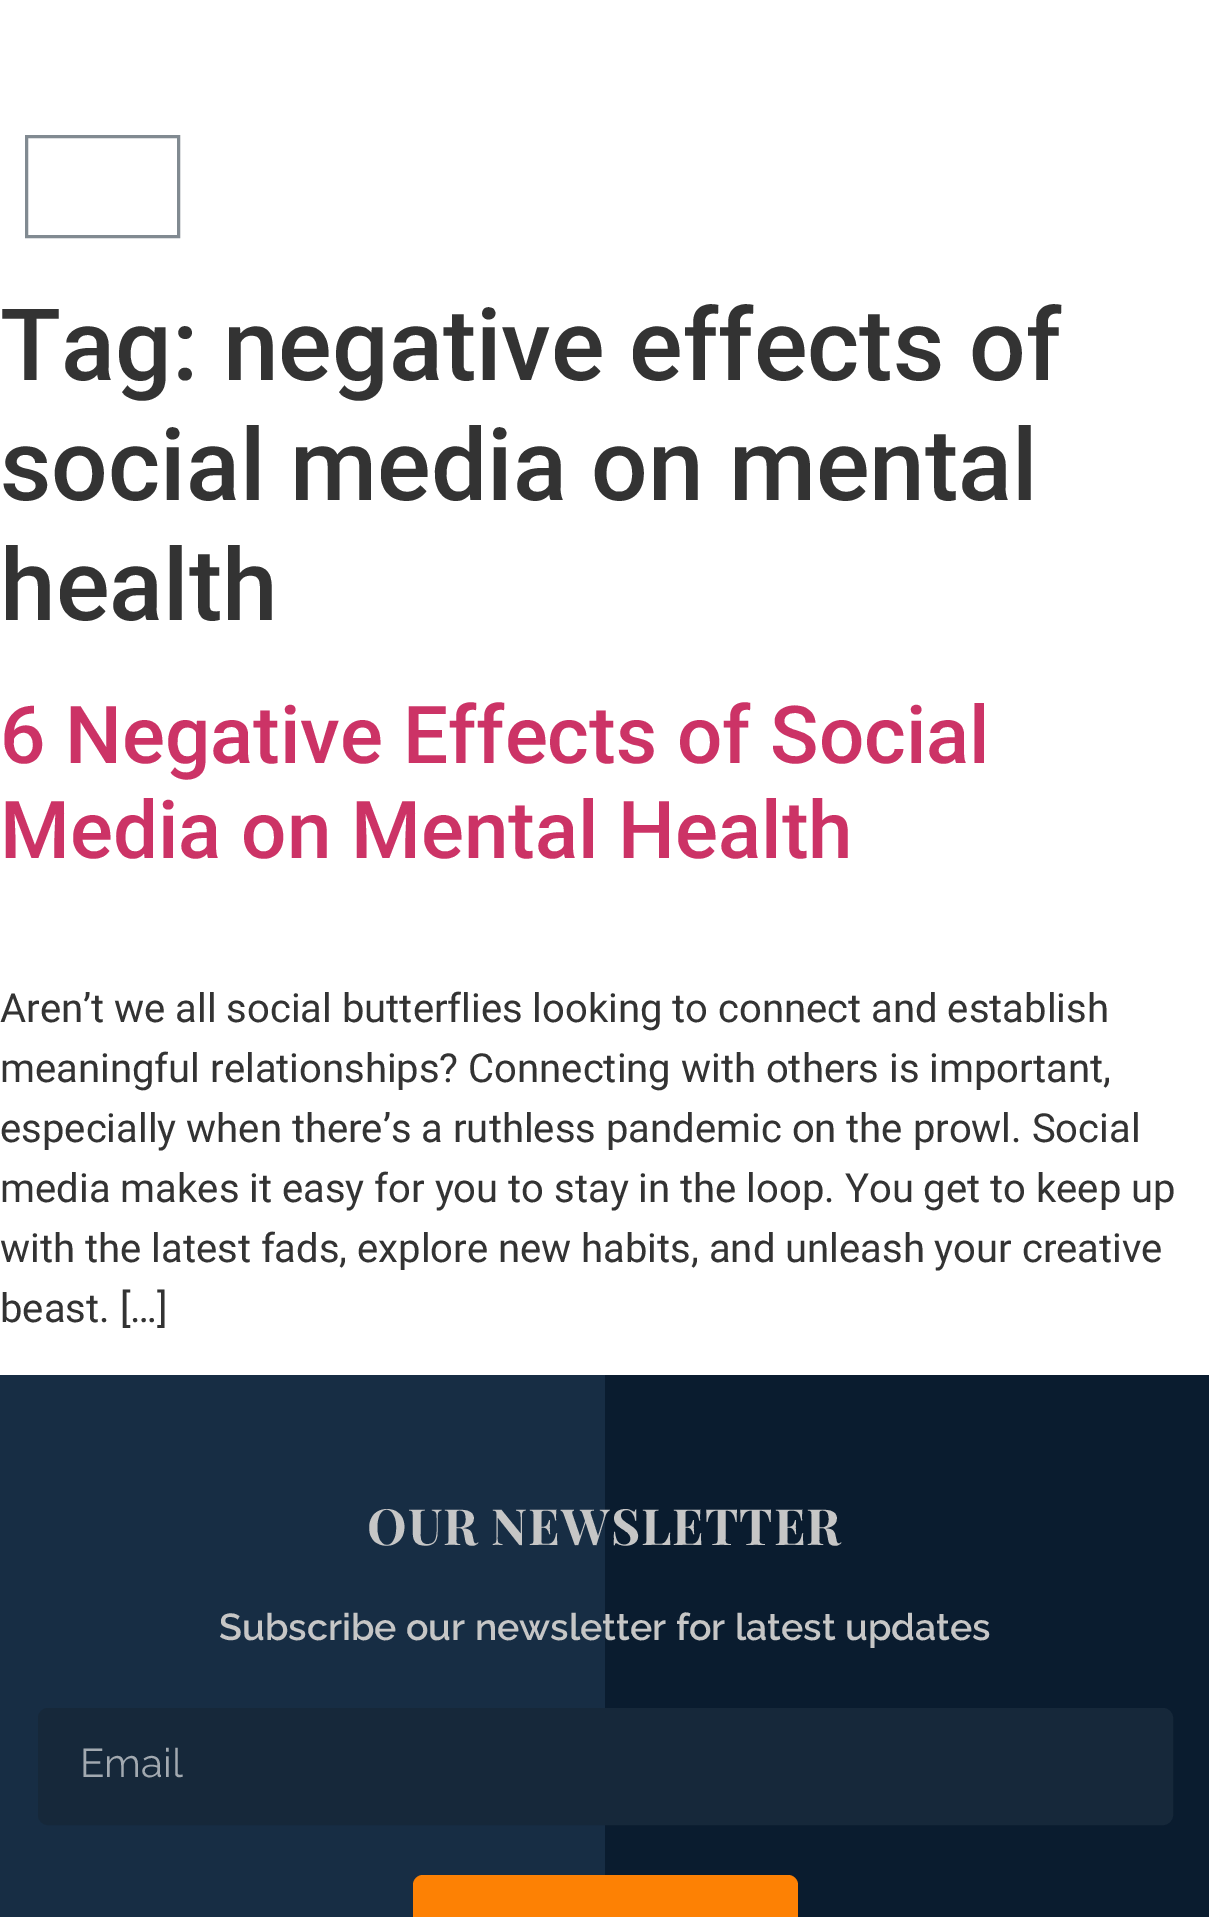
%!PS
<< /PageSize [1209 1917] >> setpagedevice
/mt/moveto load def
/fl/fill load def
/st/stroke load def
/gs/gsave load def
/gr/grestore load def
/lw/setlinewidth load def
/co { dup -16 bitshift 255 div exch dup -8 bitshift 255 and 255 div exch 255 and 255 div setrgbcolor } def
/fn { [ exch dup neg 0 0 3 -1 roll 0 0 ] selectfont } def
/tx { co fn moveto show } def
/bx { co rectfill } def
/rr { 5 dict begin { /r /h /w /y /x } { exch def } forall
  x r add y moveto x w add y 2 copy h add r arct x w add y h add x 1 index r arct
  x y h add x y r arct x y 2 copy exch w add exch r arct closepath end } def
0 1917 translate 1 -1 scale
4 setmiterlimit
0 0 1209 1917 16#FFFFFF bx
16#818A91 co
3 lw
26.5 136.5 152 100 rectstroke
0 1375 605 542 16#172D44 bx
605 1375 604 542 16#0A1C2F bx
16#16283A co
39.5 1709.5 1132 114 8.5 rr gs fl gr
st
16#FD8104 co
413 1875 385 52 10 rr fl
(Tag: negative effects of) 0 380 /Roboto-Medium 100 16#333333 tx
(social media on mental) 0 500 /Roboto-Medium 100 16#333333 tx
(health) 0 620 /Roboto-Medium 100 16#333333 tx
(6 Negative Effects of Social) 0 763 /Roboto-Medium 80 16#CC3366 tx
(Media on Mental Health) 0 858 /Roboto-Medium 80 16#CC3366 tx
(Aren’t we all social butterflies looking to connect and establish) 0 1022 /Roboto-Regular 40 16#333333 tx
(meaningful relationships? Connecting with others is important,) 0 1082 /Roboto-Regular 40 16#333333 tx
(especially when there’s a ruthless pandemic on the prowl. Social) 0 1142 /Roboto-Regular 40 16#333333 tx
(media makes it easy for you to stay in the loop. You get to keep up) 0 1202 /Roboto-Regular 40 16#333333 tx
(with the latest fads, explore new habits, and unleash your creative) 0 1262 /Roboto-Regular 40 16#333333 tx
(beast. […]) 0 1322 /Roboto-Regular 40 16#333333 tx
/PlayfairDisplay-Bold 50 fn
16#C6C6C6 co
367 1545 mt 1 0 (OUR NEWSLETTER) ashow
(Subscribe our newsletter for latest updates) 219 1640 /Raleway-SemiBold 37.5 16#C6C6C6 tx
(Email) 80 1777 /Raleway-Regular 40 16#A2A9B0 tx
showpage
